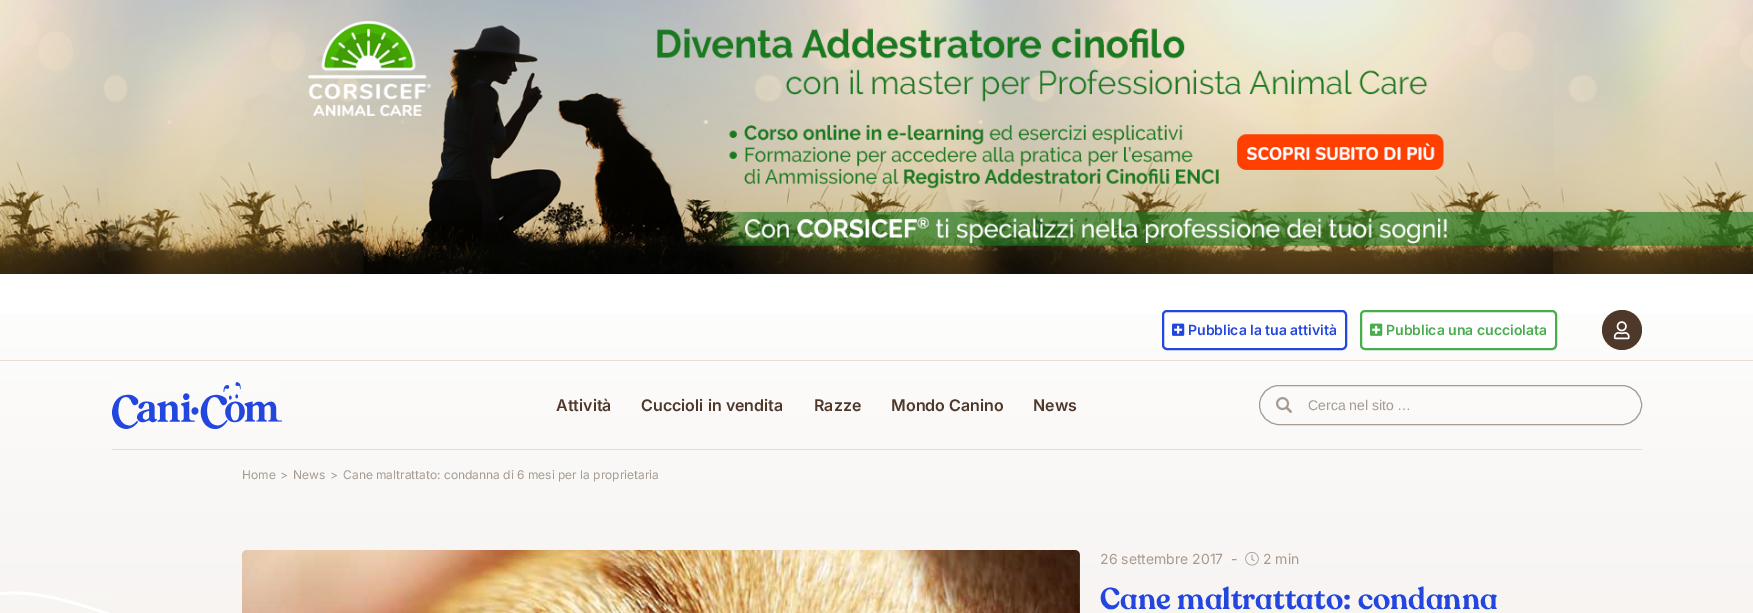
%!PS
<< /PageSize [1753 613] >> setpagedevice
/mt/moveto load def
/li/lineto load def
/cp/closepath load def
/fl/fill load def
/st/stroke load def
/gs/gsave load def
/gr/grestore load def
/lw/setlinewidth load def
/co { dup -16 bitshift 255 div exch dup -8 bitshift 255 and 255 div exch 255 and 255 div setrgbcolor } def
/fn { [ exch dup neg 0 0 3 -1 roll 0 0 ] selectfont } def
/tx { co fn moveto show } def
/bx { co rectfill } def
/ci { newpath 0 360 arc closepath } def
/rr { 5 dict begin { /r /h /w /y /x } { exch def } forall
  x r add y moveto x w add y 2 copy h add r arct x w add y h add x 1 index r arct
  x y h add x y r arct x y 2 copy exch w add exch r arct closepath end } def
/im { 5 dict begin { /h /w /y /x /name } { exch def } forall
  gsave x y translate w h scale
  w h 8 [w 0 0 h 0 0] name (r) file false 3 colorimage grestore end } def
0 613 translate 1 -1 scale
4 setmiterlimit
0 0 1753 613 16#FFFFFF bx
(media/1.raw) 0 0 1753 274 im
gs 0 314 mt 1753 314 li 1753 613 li 0 613 li cp clip newpath
<< /ShadingType 2 /ColorSpace /DeviceRGB /Coords [877 300 877 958] /Extend [true true] /Function << /FunctionType 3 /Domain [0 1] /Functions [<< /FunctionType 2 /Domain [0 1] /C0 [.992 .992 .992] /C1 [.969 .957 .945] /N 1 >> << /FunctionType 2 /Domain [0 1] /C0 [.969 .957 .945] /C1 [.969 .957 .945] /N 1 >>] /Bounds [.5] /Encode [0 1 0 1] >> >> shfill gr
1163 311 183 38 4 rr gs fl gr
16#2246DE co
2 lw
st
(media/2.raw) 1172 323 13 13 im
16#FFFFFF co
1361 311 195 38 4 rr gs fl gr
16#49AD4E co
st
(media/3.raw) 1370 323 13 13 im
16#4D382A co
1622 330 20 ci fl
(media/4.raw) 1613 321 17 19 im
112 449 1530 1 16#E8DED6 bx
(media/5.raw) 112 382 170 47 im
(media/6.raw) 1276 397 16 16 im
16#A69B92 co
1 lw
1259.5 385.5 382 39 19.5 rr st
0 360 1753 1 16#E8DED6 bx
(media/7.raw) 0 591 110 22 im
(media/8.raw) 242 550 838 63 im
(media/9.raw) 1245 552 14 14 im
(Pubblica la tua attività) 1188 335 /Inter-SemiBold 14 16#2246DE tx
(Pubblica una cucciolata) 1386 335 /Inter-SemiBold 14 16#49AD4E tx
(Attività) 556 411 /Inter-SemiBold 16 16#4D382A tx
(Cuccioli in vendita) 641 411 /Inter-SemiBold 16 16#4D382A tx
(Razze) 814 411 /Inter-SemiBold 16 16#4D382A tx
(Mondo Canino) 891 411 /Inter-SemiBold 16 16#4D382A tx
(News) 1033 411 /Inter-SemiBold 16 16#4D382A tx
(Cerca nel sito …) 1308 410 /LiberationSans-Regular 14 16#A69B92 tx
(Home) 242 479 /Inter-Regular 12 16#A69B92 tx
(>) 280 479 /Inter-Regular 12 16#A69B92 tx
(News) 293 479 /Inter-Regular 12 16#A69B92 tx
(>) 330 479 /Inter-Regular 12 16#A69B92 tx
(Cane maltrattato: condanna di 6 mesi per la proprietaria) 343 479 /Inter-Regular 12 16#A69B92 tx
(26 settembre 2017) 1100 564 /Inter-Regular 14 16#A69B92 tx
(-) 1231 564 /Inter-Regular 14 16#A69B92 tx
(2 min) 1263 564 /Inter-Regular 14 16#A69B92 tx
(Cane maltrattato: condanna) 1100 609 /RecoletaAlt-SemiBold 30 16#2246DE tx
showpage
